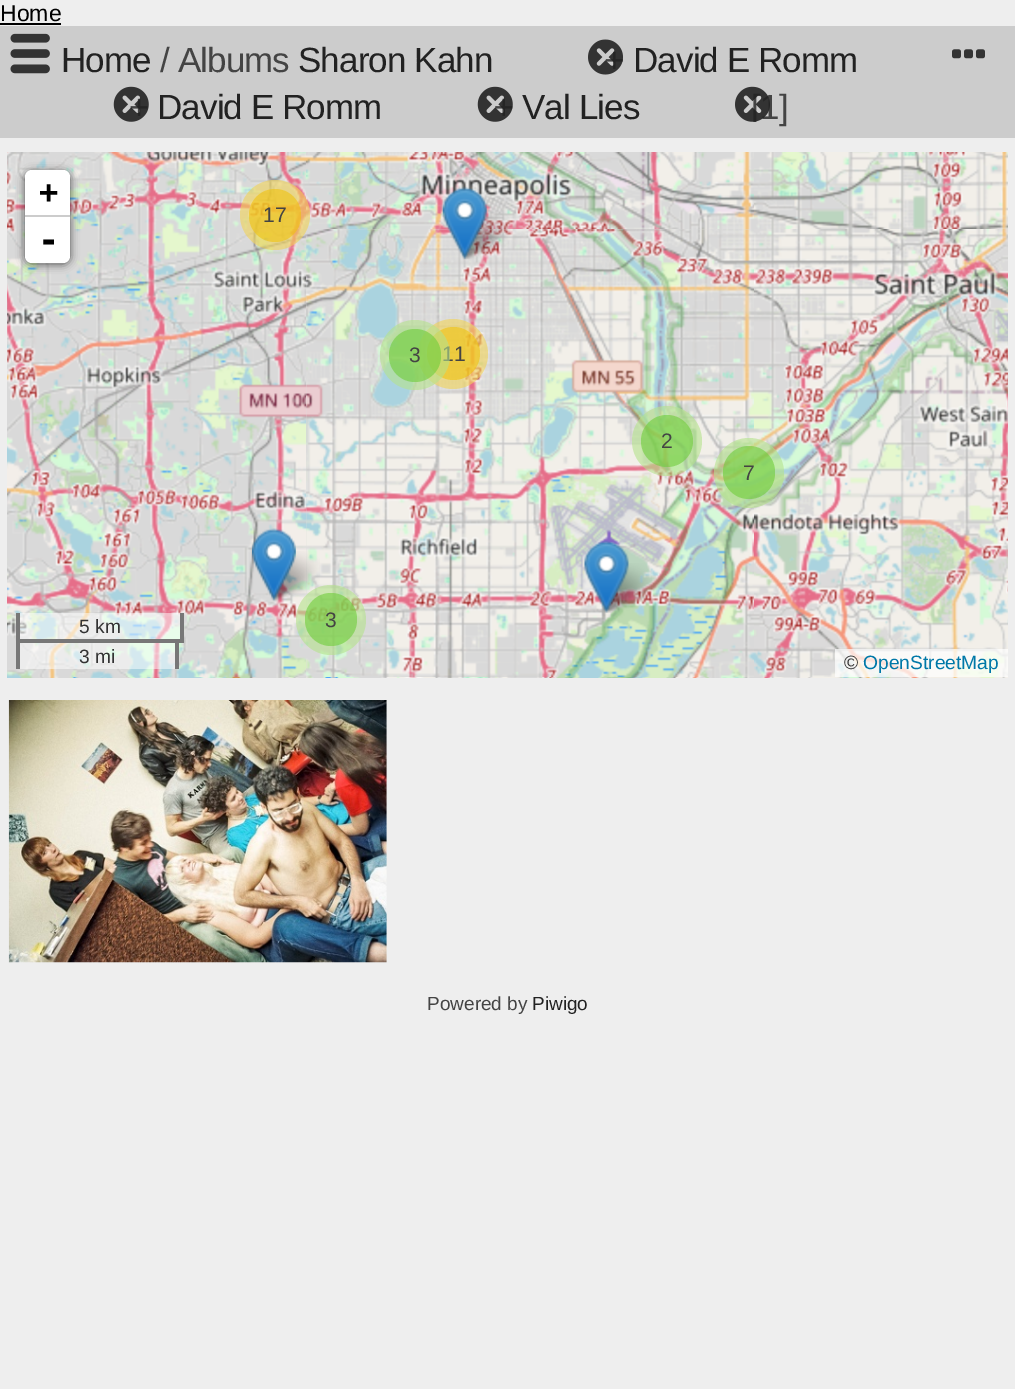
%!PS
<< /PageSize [1015 1389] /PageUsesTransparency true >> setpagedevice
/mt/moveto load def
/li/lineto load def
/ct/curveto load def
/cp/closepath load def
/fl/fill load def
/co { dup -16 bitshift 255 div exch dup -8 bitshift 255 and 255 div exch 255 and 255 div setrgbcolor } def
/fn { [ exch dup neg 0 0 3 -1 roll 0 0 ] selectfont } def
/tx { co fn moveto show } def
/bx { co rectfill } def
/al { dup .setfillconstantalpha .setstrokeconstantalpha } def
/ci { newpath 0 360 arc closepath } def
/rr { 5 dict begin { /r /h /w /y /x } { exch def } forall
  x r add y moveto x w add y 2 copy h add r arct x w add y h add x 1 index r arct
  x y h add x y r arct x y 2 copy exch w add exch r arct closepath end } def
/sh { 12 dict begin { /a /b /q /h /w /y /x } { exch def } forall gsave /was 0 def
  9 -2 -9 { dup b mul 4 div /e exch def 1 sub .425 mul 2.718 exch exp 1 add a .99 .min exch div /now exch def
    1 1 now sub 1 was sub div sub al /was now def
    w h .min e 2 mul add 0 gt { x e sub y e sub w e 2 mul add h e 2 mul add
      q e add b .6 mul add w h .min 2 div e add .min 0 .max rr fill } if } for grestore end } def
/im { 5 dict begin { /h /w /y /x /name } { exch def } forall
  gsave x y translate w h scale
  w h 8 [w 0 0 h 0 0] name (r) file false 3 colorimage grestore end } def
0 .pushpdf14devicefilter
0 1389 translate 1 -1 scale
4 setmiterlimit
0 0 1015 1389 16#EEEEEE bx
0 23 61 2 16#000000 bx
0 26 1015 112 16#CCCCCC bx
(media/1.raw) 10 33 40 41 im
(media/2.raw) 588 39 35 36 im
(media/3.raw) 113 86 36 36 im
(media/4.raw) 477 86 36 36 im
(media/6.raw) 952 49 33 10 im
306 229 448 448 16#DDDDDD bx
(media/7.raw) 7 152 299 77 im
(media/10.raw) 7 229 299 448 im
16#000000 co
25 172 45 92 7 4.5 .65 sh
16#FFFFFF co
32 170 mt 63 170 li 67 170 70 173 70 177 ct 70 217 li 25 217 li 25 177 li 25 173 28 170 32 170 ct cp fl
25 215 45 2 16#CCCCCC bx
16#FFFFFF co
25 217 mt 70 217 li 70 256 li 70 260 67 263 63 263 ct 32 263 li 28 263 25 260 25 256 ct cp fl
0.5 al
20 613 160 26 16#FFFFFF bx
1 al
180 613 4 29 16#777777 bx
179 639 5 4 16#777777 bx
16 613 4 29 16#777777 bx
0.5 al
20 643 155 26 16#FFFFFF bx
1 al
16 639 163 4 16#777777 bx
175 639 4 30 16#777777 bx
16 639 4 30 16#777777 bx
(media/12.raw) 754 229 254 448 im
0.7 al
835 649 173 28 16#FFFFFF bx
1 al
(media/8.raw) 306 152 448 77 im
(media/9.raw) 754 152 254 77 im
(media/11.raw) 306 229 448 448 im
(media/13.raw) 7 677 299 1 im
(media/14.raw) 306 677 448 1 im
(media/15.raw) 754 677 254 1 im
0.6 al
16#F1D357 co
275 215 35 ci fl
16#F0C20C co
249 189 52 53 26 rr fl
1 al
(media/19.raw) 458 210 52 50 im
(media/16.raw) 442 187 45 73 im
0.6 al
16#F1D357 co
453 354 35 ci fl
16#F0C20C co
453.5 353.5 26.5 ci fl
16#B5E28C co
667 441 35 ci fl
16#6ECC39 co
667 441 26 ci fl
16#B5E28C co
749 473 35 ci fl
16#6ECC39 co
723 446 52 53 26 rr fl
1 al
(media/20.raw) 268 551 52 50 im
(media/17.raw) 252 528 44 73 im
(media/21.raw) 600 563 52 50 im
(media/18.raw) 584 540 45 73 im
0.6 al
16#B5E28C co
331 620 35 ci fl
16#6ECC39 co
305 593 52 53 26 rr fl
1 al
(media/22.raw) 8 700 379 263 im
(Home) 0 21 /LiberationSans-Regular 23 16#000000 tx
/LiberationSans-Regular 35 fn
16#222222 co
61 72 mt -.9 0 (Home) ashow
16#444444 co
160 72 mt -.9 0 (/ Albums) ashow
16#222222 co
298 72 mt -.9 0 (Sharon Kahn) ashow
633 72 mt -.9 0 (David E Romm) ashow
157 119 mt -.9 0 (David E Romm) ashow
522 119 mt -.9 0 (Val Lies) ashow
16#444444 co
760 119 mt -.9 0 (1]) ashow
(media/5.raw) 735 86 35 36 im
(+) 39 203 /DejaVuSansMono-Bold 32 16#000000 tx
(-) 38 252 /DejaVuSansMono-Bold 35 16#000000 tx
(5 km) 79 633 /LiberationSans-Regular 19.25 16#333333 tx
(3 mi) 79 663 /LiberationSans-Regular 19.25 16#333333 tx
(©) 844 669 /LiberationSans-Regular 19.25 16#333333 tx
(OpenStreetMap) 863 669 /LiberationSans-Regular 19.25 16#0078A8 tx
(17) 263 222 /LiberationSans-Regular 21 16#444444 tx
(11) 442 361 /LiberationSans-Regular 21 16#444444 tx
0.6 al
16#B5E28C co
415 355 35 ci fl
16#6ECC39 co
389 329 52 53 26 rr fl
1 al
(3) 409 362 /LiberationSans-Regular 21 16#444444 tx
(2) 661 448 /LiberationSans-Regular 21 16#444444 tx
(7) 743 480 /LiberationSans-Regular 21 16#444444 tx
(3) 325 627 /LiberationSans-Regular 21 16#444444 tx
(Powered by) 427 1010 /LiberationSans-Regular 19 16#444444 tx
(Piwigo) 532 1010 /LiberationSans-Regular 19 16#222222 tx
.poppdf14devicefilter showpage
